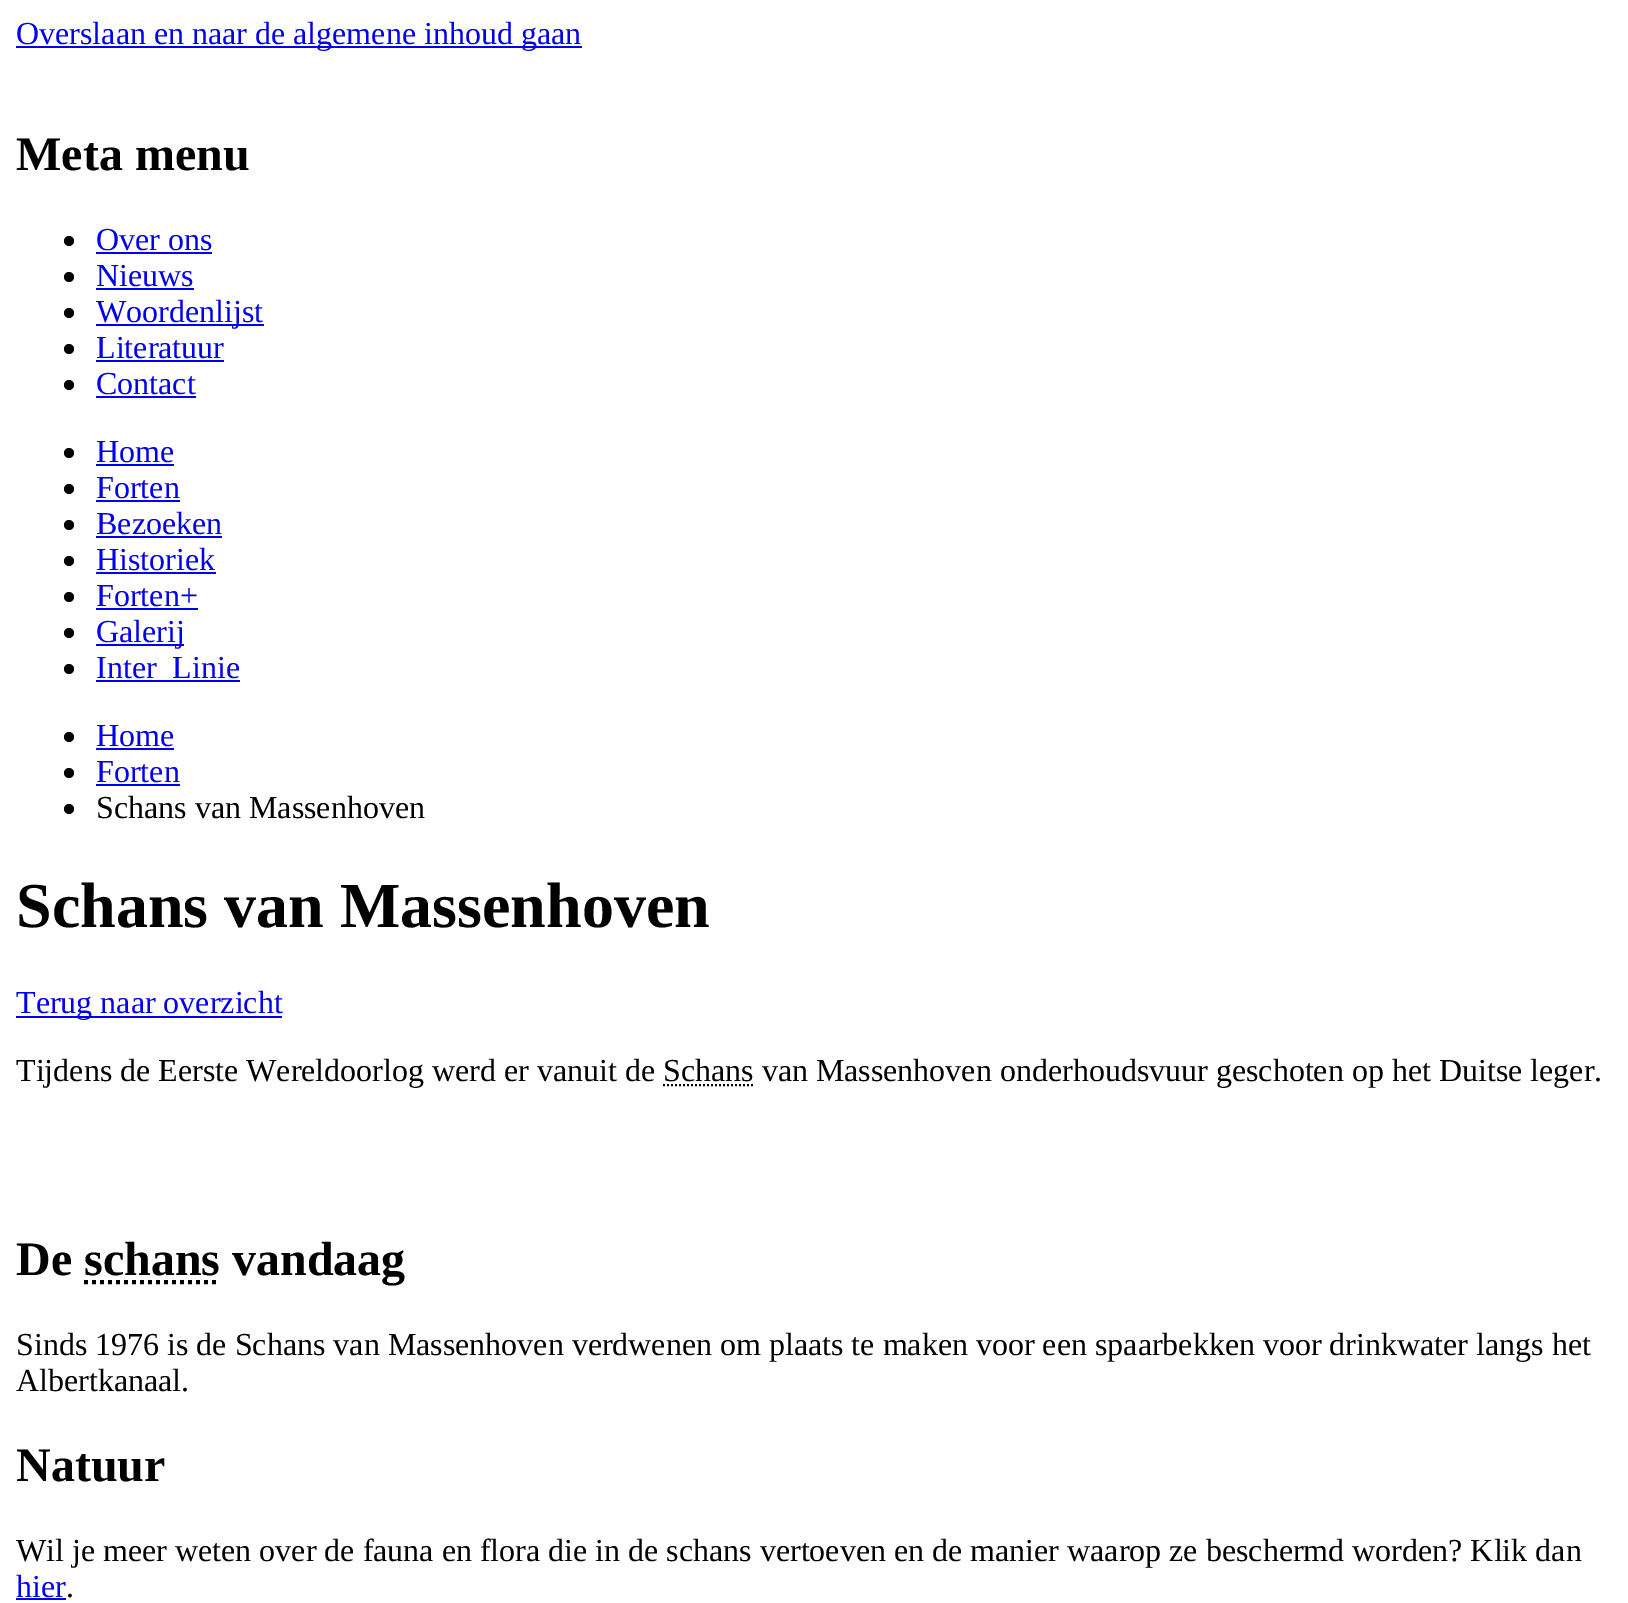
%!PS
<< /PageSize [1628 1603] >> setpagedevice
/mt/moveto load def
/li/lineto load def
/fl/fill load def
/st/stroke load def
/lw/setlinewidth load def
/co { dup -16 bitshift 255 div exch dup -8 bitshift 255 and 255 div exch 255 and 255 div setrgbcolor } def
/fn { [ exch dup neg 0 0 3 -1 roll 0 0 ] selectfont } def
/tx { co fn moveto show } def
/bx { co rectfill } def
/ci { newpath 0 360 arc closepath } def
0 1603 translate 1 -1 scale
4 setmiterlimit
0 0 1628 1603 16#FFFFFF bx
16 46 566 2 16#0000EE bx
16#000000 co
69 241 5 ci fl
96 252 116 2 16#0000EE bx
16#000000 co
69 277 5 ci fl
96 288 98 2 16#0000EE bx
16#000000 co
69 313 5 ci fl
96 324 168 2 16#0000EE bx
16#000000 co
69 349 5 ci fl
96 360 128 2 16#0000EE bx
16#000000 co
69 385 5 ci fl
96 396 100 2 16#0000EE bx
16#000000 co
69 453 5 ci fl
96 464 78 2 16#0000EE bx
16#000000 co
69 489 5 ci fl
96 500 84 2 16#0000EE bx
16#000000 co
69 525 5 ci fl
96 536 126 2 16#0000EE bx
16#000000 co
69 561 5 ci fl
96 572 120 2 16#0000EE bx
16#000000 co
69 597 5 ci fl
96 608 102 2 16#0000EE bx
16#000000 co
69 633 5 ci fl
96 644 88 2 16#0000EE bx
16#000000 co
69 669 5 ci fl
96 680 144 2 16#0000EE bx
16#000000 co
69 737 5 ci fl
96 748 78 2 16#0000EE bx
16#000000 co
69 773 5 ci fl
96 784 84 2 16#0000EE bx
16#000000 co
69 809 5 ci fl
16 1016 266 2 16#0000EE bx
16#000000 co
2 lw
[2 2] 0 setdash
663 1085 mt 753.5 1085 li st
4 lw
[4 4] 0 setdash
84 1282 mt 220 1282 li st
16 1598 50 2 16#0000EE bx
(Overslaan en naar de algemene inhoud gaan) 16 44 /LiberationSerif-Regular 32 16#0000EE tx
(Meta menu) 16 170 /LiberationSerif-Bold 48 16#000000 tx
(Over ons) 96 250 /LiberationSerif-Regular 32 16#0000EE tx
(Nieuws) 96 286 /LiberationSerif-Regular 32 16#0000EE tx
(Woordenlijst) 96 322 /LiberationSerif-Regular 32 16#0000EE tx
(Literatuur) 96 358 /LiberationSerif-Regular 32 16#0000EE tx
(Contact) 96 394 /LiberationSerif-Regular 32 16#0000EE tx
(Home) 96 462 /LiberationSerif-Regular 32 16#0000EE tx
(Forten) 96 498 /LiberationSerif-Regular 32 16#0000EE tx
(Bezoeken) 96 534 /LiberationSerif-Regular 32 16#0000EE tx
(Historiek) 96 570 /LiberationSerif-Regular 32 16#0000EE tx
(Forten+) 96 606 /LiberationSerif-Regular 32 16#0000EE tx
(Galerij) 96 642 /LiberationSerif-Regular 32 16#0000EE tx
(Inter_Linie) 96 678 /LiberationSerif-Regular 32 16#0000EE tx
(Home) 96 746 /LiberationSerif-Regular 32 16#0000EE tx
(Forten) 96 782 /LiberationSerif-Regular 32 16#0000EE tx
(Schans van Massenhoven) 96 818 /LiberationSerif-Regular 32 16#000000 tx
(Schans van Massenhoven) 16 927 /LiberationSerif-Bold 64 16#000000 tx
(Terug naar overzicht) 16 1013 /LiberationSerif-Regular 32 16#0000EE tx
(Tijdens de Eerste Wereldoorlog werd er vanuit de Schans van Massenhoven onderhoudsvuur geschoten op het Duitse leger.) 16 1081 /LiberationSerif-Regular 32 16#000000 tx
(De schans vandaag) 16 1275 /LiberationSerif-Bold 48 16#000000 tx
(Sinds 1976 is de Schans van Massenhoven verdwenen om plaats te maken voor een spaarbekken voor drinkwater langs het) 16 1355 /LiberationSerif-Regular 32 16#000000 tx
(Albertkanaal.) 16 1391 /LiberationSerif-Regular 32 16#000000 tx
(Natuur) 16 1481 /LiberationSerif-Bold 48 16#000000 tx
(Wil je meer weten over de fauna en flora die in de schans vertoeven en de manier waarop ze beschermd worden? Klik dan) 16 1561 /LiberationSerif-Regular 32 16#000000 tx
(hier) 16 1597 /LiberationSerif-Regular 32 16#0000EE tx
(.) 66 1597 /LiberationSerif-Regular 32 16#000000 tx
showpage
